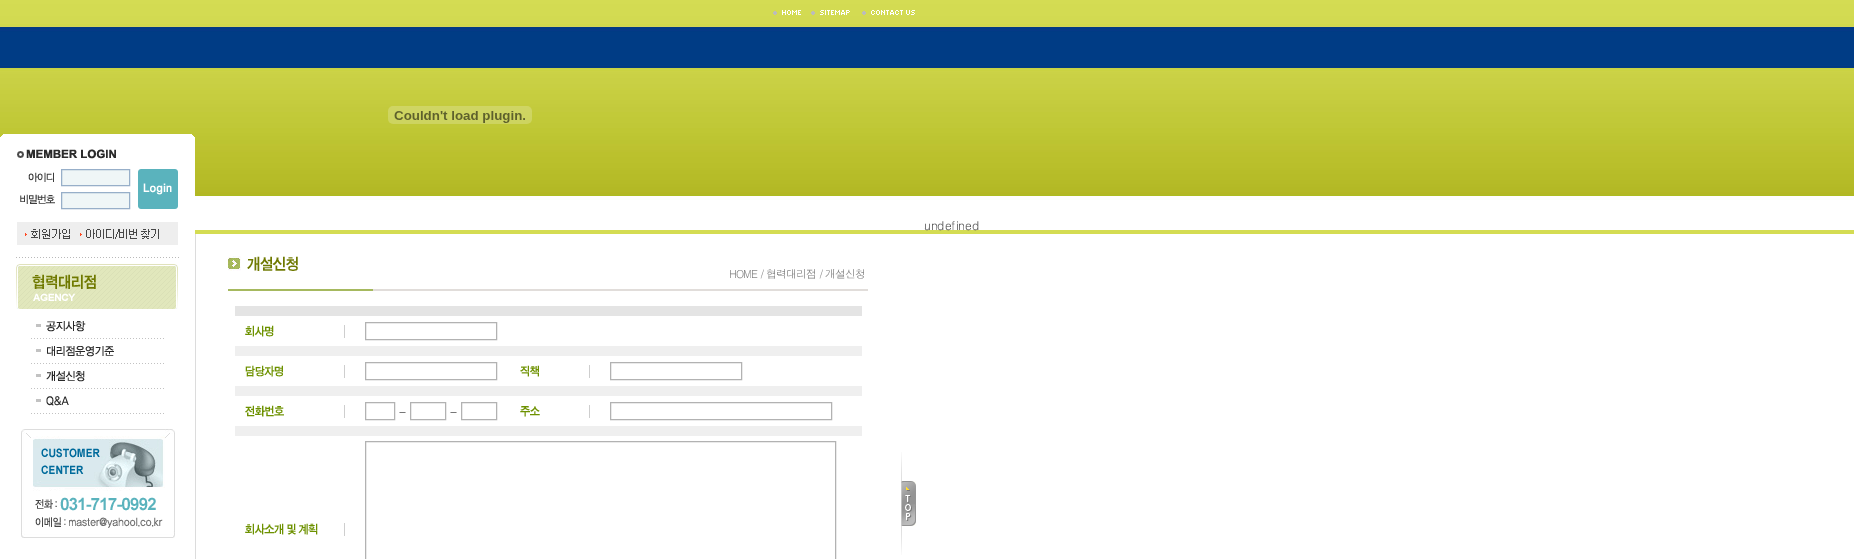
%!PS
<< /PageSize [1854 559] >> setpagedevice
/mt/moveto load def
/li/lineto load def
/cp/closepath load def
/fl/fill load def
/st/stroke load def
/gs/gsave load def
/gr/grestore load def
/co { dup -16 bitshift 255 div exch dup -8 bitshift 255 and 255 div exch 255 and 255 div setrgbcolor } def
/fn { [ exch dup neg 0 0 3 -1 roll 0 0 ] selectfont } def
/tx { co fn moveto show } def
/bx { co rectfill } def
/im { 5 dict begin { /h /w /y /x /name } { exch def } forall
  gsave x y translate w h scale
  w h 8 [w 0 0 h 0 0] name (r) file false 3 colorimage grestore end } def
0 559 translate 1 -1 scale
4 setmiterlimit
0 0 1854 559 16#FFFFFF bx
(media/11.raw) 0 0 1854 234 im
(media/1.raw) 773 10 28 5 im
(media/2.raw) 811 10 39 5 im
(media/3.raw) 862 10 53 5 im
(media/4.raw) 0 134 195 5 im
0 139 195 95 16#FFFFFF bx
(media/5.raw) 17 149 99 10 im
(media/6.raw) 28 172 26 10 im
16#EFF6F7 co
61.5 169.5 mt 129.5 169.5 li 129.5 185.5 li 61.5 185.5 li cp gs fl gr
16#97AFC9 co
st
(media/7.raw) 20 194 35 10 im
16#EFF6F7 co
61.5 192.5 mt 129.5 192.5 li 129.5 208.5 li 61.5 208.5 li cp gs fl gr
16#97AFC9 co
st
(media/8.raw) 138 169 40 40 im
17 222 161 23 16#EEEEEE bx
(media/9.raw) 25 229 45 10 im
(media/10.raw) 80 229 79 10 im
(media/12.raw) 388 106 144 18 im
195 234 1 325 16#DCDCDC bx
(media/13.raw) 16 257 163 1 im
(media/14.raw) 16 264 162 45 im
(media/15.raw) 36 321 50 11 im
(media/16.raw) 31 338 133 1 im
(media/17.raw) 36 346 78 11 im
(media/16.raw) 31 363 133 1 im
(media/18.raw) 36 371 49 11 im
(media/16.raw) 31 388 133 1 im
(media/19.raw) 36 396 33 10 im
(media/16.raw) 31 413 133 1 im
(media/20.raw) 21 429 154 109 im
(media/21.raw) 228 256 70 15 im
228 289 145 2 16#A6B95F bx
373 289 495 2 16#E1DDDA bx
235 306 627 10 16#E4E4E4 bx
(media/22.raw) 245 325 29 12 im
344 325 1 13 16#CECECE bx
16#B2B2B2 co
365.5 322.5 131 17 rectstroke
235 346 627 10 16#EFEFEF bx
(media/23.raw) 245 365 38 12 im
344 365 1 13 16#CECECE bx
16#B2B2B2 co
365.5 362.5 131 17 rectstroke
(media/24.raw) 520 365 19 12 im
589 365 1 13 16#CECECE bx
16#B2B2B2 co
610.5 362.5 131 17 rectstroke
235 386 627 10 16#EFEFEF bx
(media/25.raw) 245 405 39 12 im
344 405 1 13 16#CECECE bx
16#B2B2B2 co
365.5 402.5 29 17 rectstroke
410.5 402.5 35 17 rectstroke
461.5 402.5 35 17 rectstroke
(media/26.raw) 520 406 20 11 im
589 405 1 13 16#CECECE bx
16#B2B2B2 co
610.5 402.5 221 17 rectstroke
235 426 627 10 16#EFEFEF bx
(media/27.raw) 245 523 73 12 im
344 523 1 13 16#CECECE bx
16#B2B2B2 co
365.5 441.5 470 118 rectstroke
(media/28.raw) 901 452 15 103 im
(undefined) 924 230 /Dotum-Regular 12 16#474747 tx
/Dotum-Regular 11 fn
16#848484 co
729 278 mt -1 0 (HOME / 협력대리점 / 개설신청) ashow
(-) 399 417 /Dotum-Regular 12 16#474747 tx
(-) 450 417 /Dotum-Regular 12 16#474747 tx
showpage
